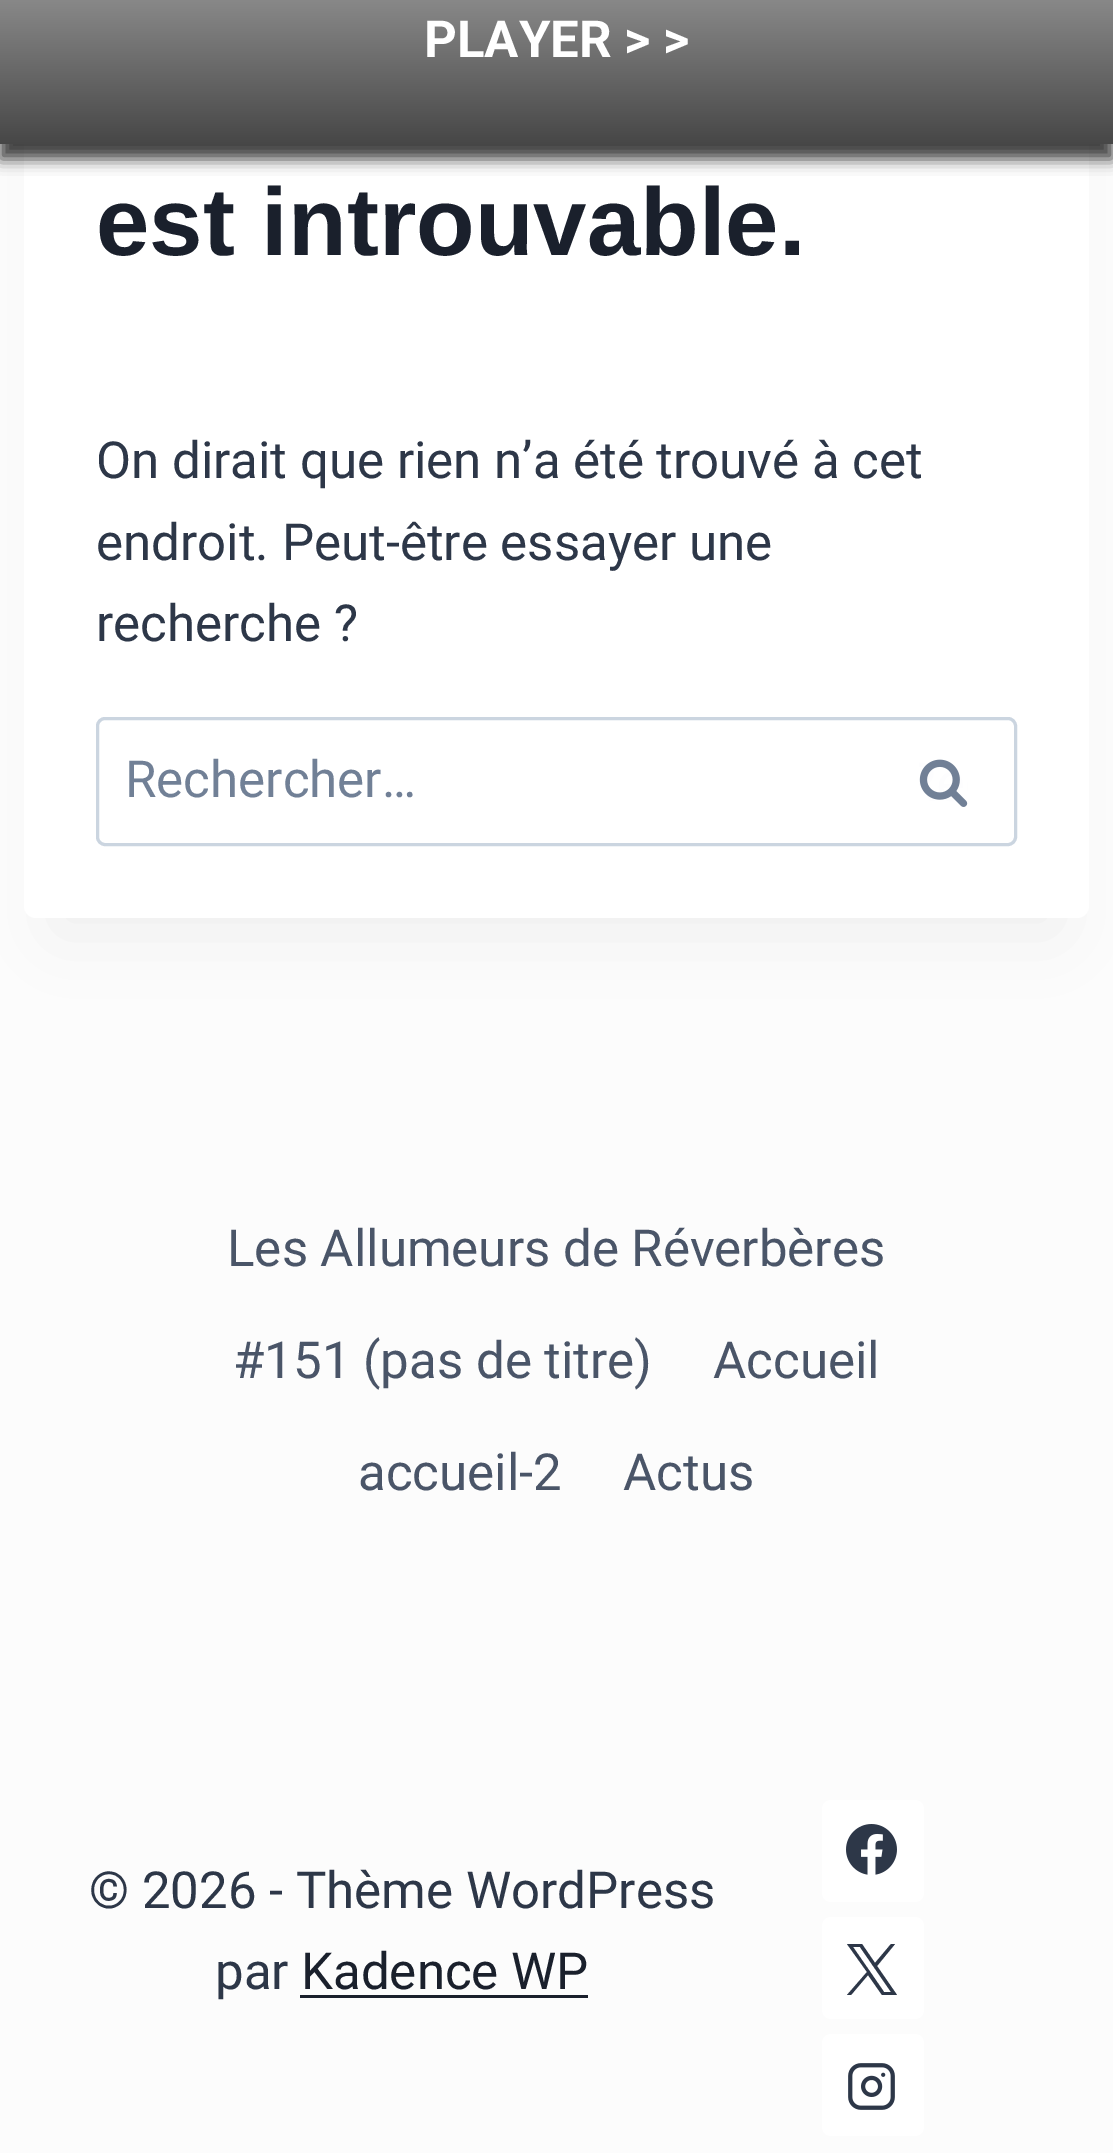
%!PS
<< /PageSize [1113 2153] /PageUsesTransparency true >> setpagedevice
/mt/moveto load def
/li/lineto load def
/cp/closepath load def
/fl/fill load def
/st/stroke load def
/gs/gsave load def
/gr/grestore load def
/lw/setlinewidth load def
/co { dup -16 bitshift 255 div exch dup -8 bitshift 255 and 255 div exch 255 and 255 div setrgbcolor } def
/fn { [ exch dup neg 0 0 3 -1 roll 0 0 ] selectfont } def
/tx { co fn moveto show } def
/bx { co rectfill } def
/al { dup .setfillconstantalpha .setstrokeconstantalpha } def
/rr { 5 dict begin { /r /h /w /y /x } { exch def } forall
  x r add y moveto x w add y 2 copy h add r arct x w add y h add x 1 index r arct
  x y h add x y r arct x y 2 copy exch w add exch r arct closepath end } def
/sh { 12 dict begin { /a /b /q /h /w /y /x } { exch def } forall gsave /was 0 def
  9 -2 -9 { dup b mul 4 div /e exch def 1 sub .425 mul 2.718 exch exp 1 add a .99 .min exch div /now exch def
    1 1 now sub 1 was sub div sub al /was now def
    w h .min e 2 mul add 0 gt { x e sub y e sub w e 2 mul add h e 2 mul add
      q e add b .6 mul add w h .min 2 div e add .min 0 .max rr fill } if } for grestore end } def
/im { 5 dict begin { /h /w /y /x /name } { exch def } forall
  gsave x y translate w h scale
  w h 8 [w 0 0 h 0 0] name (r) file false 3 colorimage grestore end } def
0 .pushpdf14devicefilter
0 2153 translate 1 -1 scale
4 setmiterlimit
0 0 1113 2153 16#FCFCFC bx
16#000000 co
54 9 1005 924 0 37.5 .05 sh
16#FFFFFF co
24 -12 1065 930 12 rr fl
16#000000 co
0 15 1113 144 0 7.5 .75 sh
gs 0 0 mt 1113 0 li 1113 144 li 0 144 li cp clip newpath
<< /ShadingType 2 /ColorSpace /DeviceRGB /Coords [557 0 557 303] /Extend [true true] /Function << /FunctionType 2 /Domain [0 1] /C0 [.533 .533 .533] /C1 [0 0 0] /N 1 >> >> shfill gr
16#CBD5E0 co
3 lw
97.5 718.5 918 126 7.5 rr st
(media/1.raw) 919 759 49 48 im
300 1995 288 3 16#1A202C bx
16#FFFFFF co
822 1800 102 102 9 rr fl
(media/2.raw) 846 1824 51 51 im
822 1917 102 102 9 rr fl
16#2D3748 co
877 1966 mt 895 1944 li 891 1944 li 875 1963 li 862 1944 li 847 1944 li 867 1972 li 847 1995 li 851 1995 li 868 1975 li 882 1995 li 897 1995 li cp 871 1973 mt 853 1947 li 860 1947 li 891 1992 li 884 1992 li cp fl
16#FFFFFF co
822 2034 102 102 9 rr fl
(media/3.raw) 848 2063 47 47 im
(PLAYER > >) 424 57 /Roboto-Bold 51 16#FFFFFF tx
(est introuvable.) 96 255 /LiberationSans-Bold 96 16#1A202C tx
(On dirait que rien n’a été trouvé à cet) 96 478 /Roboto-Regular 51 16#2D3748 tx
(endroit. Peut-être essayer une) 96 560 /Roboto-Regular 51 16#2D3748 tx
(recherche ?) 96 641 /Roboto-Regular 51 16#2D3748 tx
(Rechercher…) 125 797 /Roboto-Regular 51 16#718096 tx
(Les Allumeurs de Réverbères) 227 1266 /Roboto-Regular 51 16#4A5568 tx
(#151 \(pas de titre\)) 233 1378 /Roboto-Regular 51 16#4A5568 tx
(Accueil) 713 1378 /Roboto-Regular 51 16#4A5568 tx
(accueil-2) 358 1490 /Roboto-Regular 51 16#4A5568 tx
(Actus) 623 1490 /Roboto-Regular 51 16#4A5568 tx
(© 2026 - Thème WordPress) 89 1908 /Roboto-Regular 51 16#2D3748 tx
(par) 215 1989 /Roboto-Regular 51 16#2D3748 tx
(Kadence WP) 301 1989 /Roboto-Regular 51 16#1A202C tx
.poppdf14devicefilter showpage
